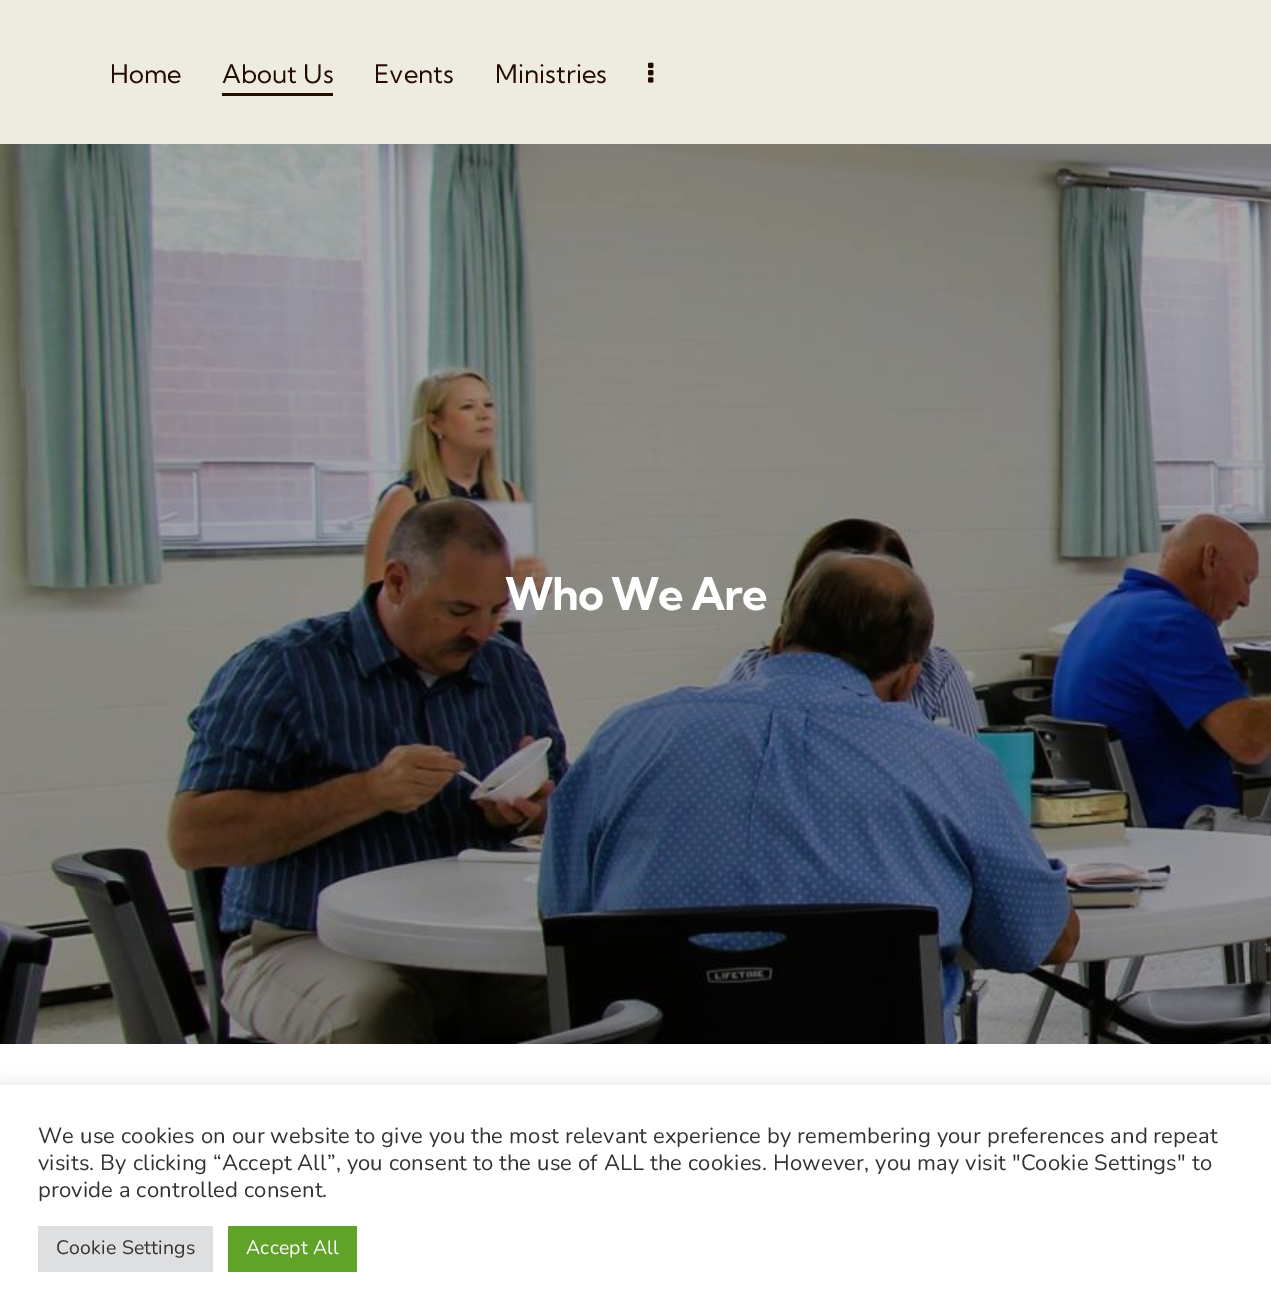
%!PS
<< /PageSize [1271 1316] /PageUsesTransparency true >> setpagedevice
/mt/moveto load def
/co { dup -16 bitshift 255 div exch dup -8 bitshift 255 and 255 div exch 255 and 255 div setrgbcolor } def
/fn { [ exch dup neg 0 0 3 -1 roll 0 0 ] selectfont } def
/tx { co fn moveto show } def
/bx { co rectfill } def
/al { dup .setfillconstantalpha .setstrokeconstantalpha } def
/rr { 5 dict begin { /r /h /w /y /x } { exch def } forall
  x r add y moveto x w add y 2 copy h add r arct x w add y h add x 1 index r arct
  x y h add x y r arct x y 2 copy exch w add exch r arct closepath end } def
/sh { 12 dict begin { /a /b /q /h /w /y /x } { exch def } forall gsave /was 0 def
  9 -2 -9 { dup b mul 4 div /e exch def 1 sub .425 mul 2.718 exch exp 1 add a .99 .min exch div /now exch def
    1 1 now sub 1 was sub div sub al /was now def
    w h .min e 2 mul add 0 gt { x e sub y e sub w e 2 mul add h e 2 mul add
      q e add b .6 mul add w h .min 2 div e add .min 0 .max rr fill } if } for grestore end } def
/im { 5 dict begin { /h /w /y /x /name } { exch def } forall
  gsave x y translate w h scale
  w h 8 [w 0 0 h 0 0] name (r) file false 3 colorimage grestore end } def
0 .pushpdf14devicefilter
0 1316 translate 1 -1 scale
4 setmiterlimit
0 0 1271 1316 16#FFFFFF bx
0 0 1271 144 16#EEECE1 bx
222 93 111 3 16#240C00 bx
(media/1.raw) 648 62 6 21 im
(media/2.raw) 0 144 1271 900 im
16#ACABAB co
0 1083 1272 233 0 7.5 .3 sh
0 1085 1271 231 16#FFFFFF bx
38 1226 175 46 16#DEDFE0 bx
228 1226 129 46 16#61A229 bx
(Home) 110 83 /KumbhSans-Regular 25.5 16#240C00 tx
(About Us) 222 83 /KumbhSans-Regular 25.5 16#240C00 tx
(Events) 374 83 /KumbhSans-Regular 25.5 16#240C00 tx
(Ministries) 495 83 /KumbhSans-Regular 25.5 16#240C00 tx
/KumbhSans-Bold 45 fn
16#FFFFFF co
505 610 mt -1.4 0 (Who We Are) ashow
/Nunito-Regular 22 fn
16#333333 co
38 1143 mt .15 0 (We use cookies on our website to give you the most relevant experience by remembering your preferences and repeat) ashow
38 1170 mt .15 0 (visits. By clicking “Accept All”, you consent to the use of ALL the cookies. However, you may visit "Cookie Settings" to) ashow
38 1197 mt .15 0 (provide a controlled consent.) ashow
/Nunito-Regular 19.5 fn
56 1254 mt .15 0 (Cookie Settings) ashow
16#FFFFFF co
246 1254 mt .15 0 (Accept All) ashow
.poppdf14devicefilter showpage
